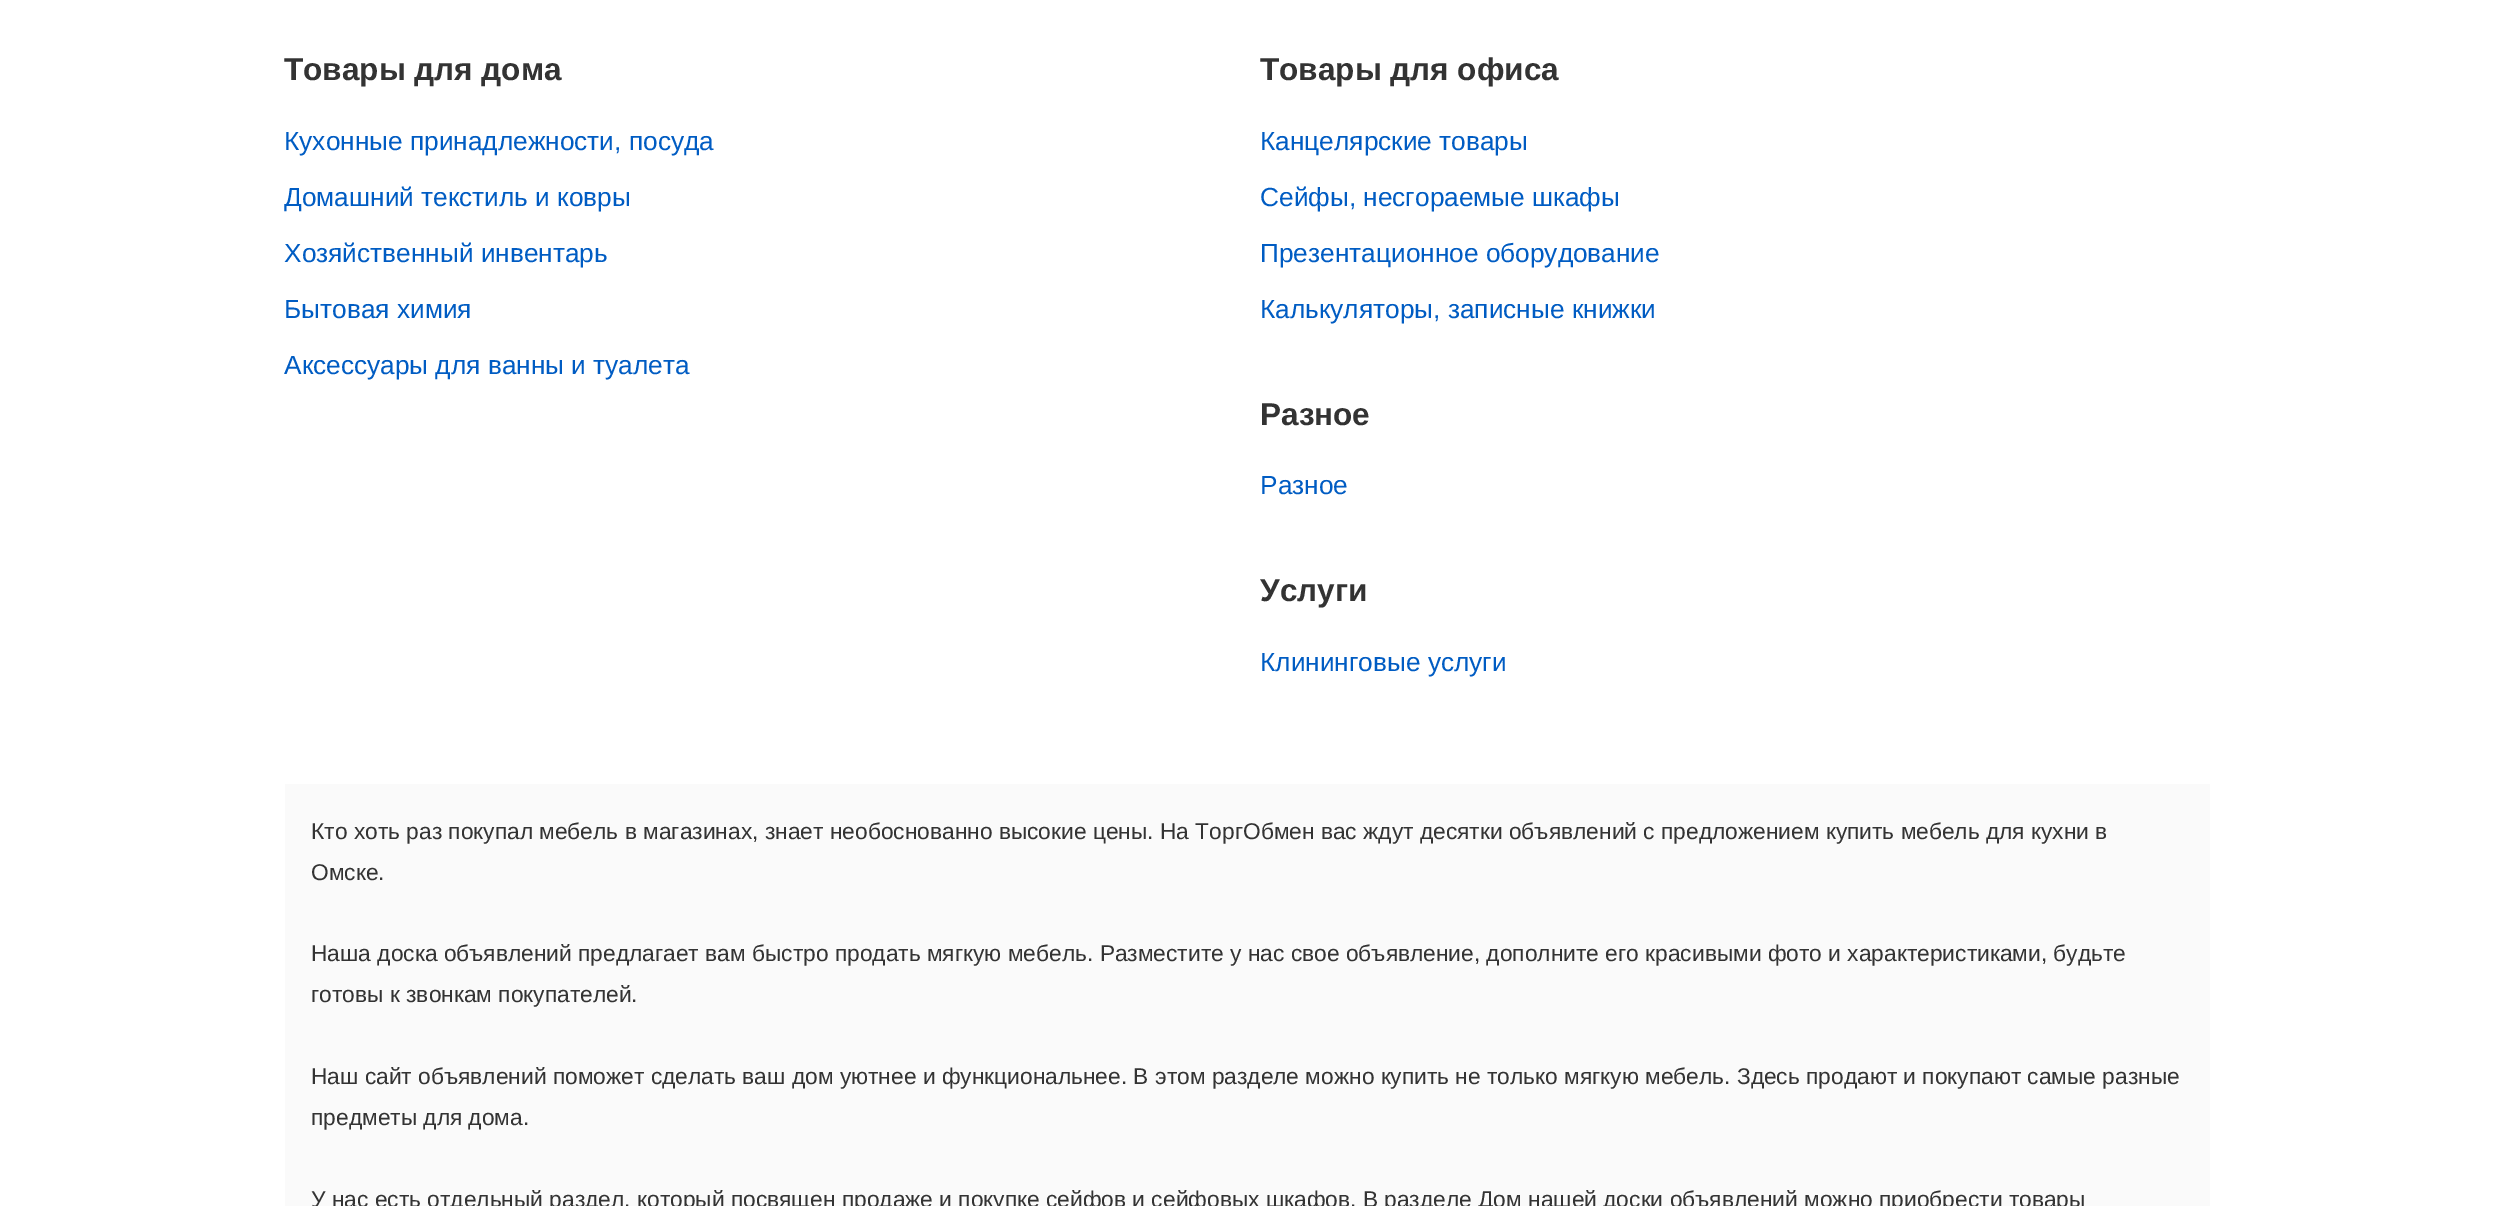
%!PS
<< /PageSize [2493 1206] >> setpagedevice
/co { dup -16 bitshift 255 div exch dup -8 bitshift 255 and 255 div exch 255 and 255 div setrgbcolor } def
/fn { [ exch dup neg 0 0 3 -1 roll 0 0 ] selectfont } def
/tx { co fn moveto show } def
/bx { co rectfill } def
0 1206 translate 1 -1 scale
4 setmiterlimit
0 0 2493 1206 16#FFFFFF bx
285 784 1925 422 16#FAFAFA bx
(Товары для дома) 284 80 /LiberationSans-Bold 31.5 16#333333 tx
(Кухонные принадлежности, посуда) 284 150 /LiberationSans-Regular 26.25 16#005CC3 tx
(Домашний текстиль и ковры) 284 206 /LiberationSans-Regular 26.25 16#005CC3 tx
(Хозяйственный инвентарь) 284 262 /LiberationSans-Regular 26.25 16#005CC3 tx
(Бытовая химия) 284 318 /LiberationSans-Regular 26.25 16#005CC3 tx
(Аксессуары для ванны и туалета) 284 374 /LiberationSans-Regular 26.25 16#005CC3 tx
(Товары для офиса) 1260 80 /LiberationSans-Bold 31.5 16#333333 tx
(Канцелярские товары) 1260 150 /LiberationSans-Regular 26.25 16#005CC3 tx
(Сейфы, несгораемые шкафы) 1260 206 /LiberationSans-Regular 26.25 16#005CC3 tx
(Презентационное оборудование) 1260 262 /LiberationSans-Regular 26.25 16#005CC3 tx
(Калькуляторы, записные книжки) 1260 318 /LiberationSans-Regular 26.25 16#005CC3 tx
(Разное) 1260 425 /LiberationSans-Bold 31.5 16#333333 tx
(Разное) 1260 494 /LiberationSans-Regular 26.25 16#005CC3 tx
(Услуги) 1260 601 /LiberationSans-Bold 31.5 16#333333 tx
(Клининговые услуги) 1260 671 /LiberationSans-Regular 26.25 16#005CC3 tx
(Кто хоть раз покупал мебель в магазинах, знает необоснованно высокие цены. На ТоргОбмен вас ждут десятки объявлений с предложением купить мебель для кухни в) 311 839 /LiberationSans-Regular 22.75 16#333333 tx
(Омске.) 311 880 /LiberationSans-Regular 22.75 16#333333 tx
(Наша доска объявлений предлагает вам быстро продать мягкую мебель. Разместите у нас свое объявление, дополните его красивыми фото и характеристиками, будьте) 311 961 /LiberationSans-Regular 22.75 16#333333 tx
(готовы к звонкам покупателей.) 311 1002 /LiberationSans-Regular 22.75 16#333333 tx
(Наш сайт объявлений поможет сделать ваш дом уютнее и функциональнее. В этом разделе можно купить не только мягкую мебель. Здесь продают и покупают самые разные) 311 1084 /LiberationSans-Regular 22.75 16#333333 tx
(предметы для дома.) 311 1125 /LiberationSans-Regular 22.75 16#333333 tx
(У нас есть отдельный раздел, который посвящен продаже и покупке сейфов и сейфовых шкафов. В разделе Дом нашей доски объявлений можно приобрести товары) 311 1207 /LiberationSans-Regular 22.75 16#333333 tx
showpage
